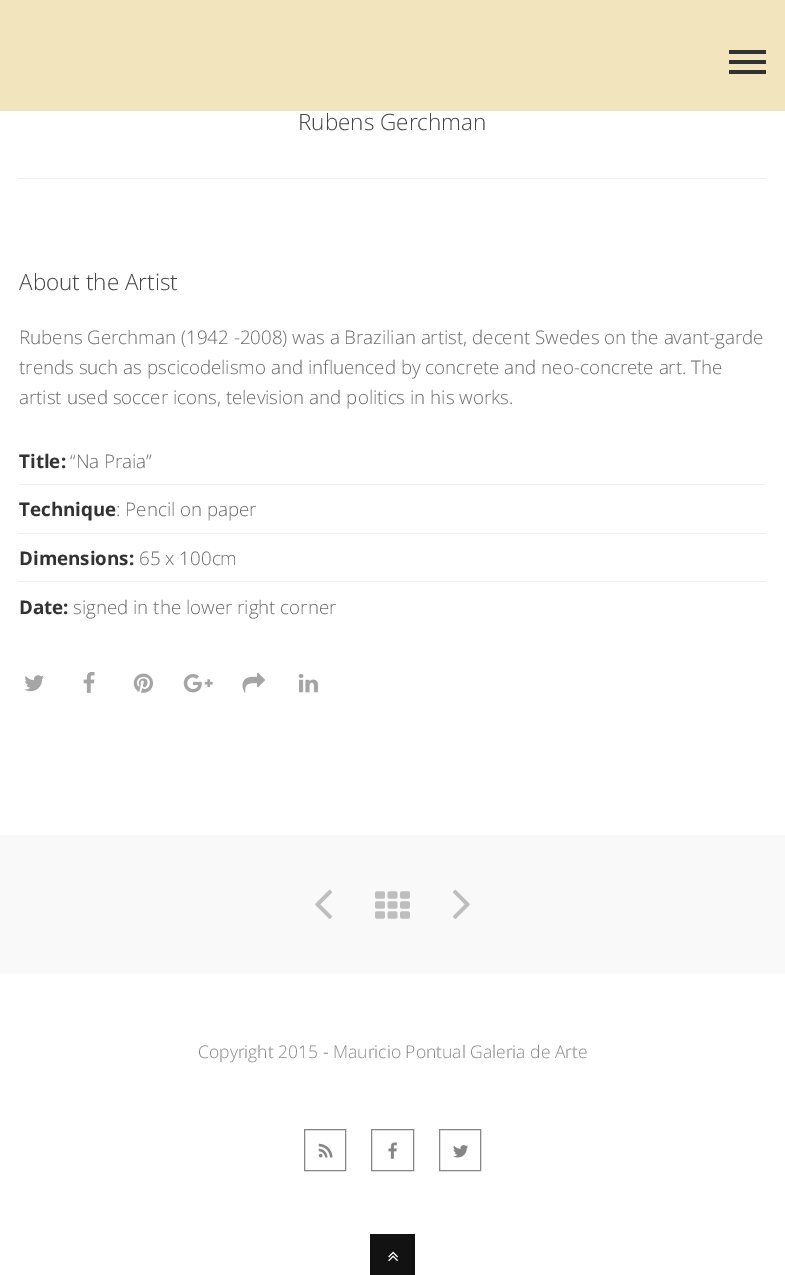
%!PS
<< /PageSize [785 1275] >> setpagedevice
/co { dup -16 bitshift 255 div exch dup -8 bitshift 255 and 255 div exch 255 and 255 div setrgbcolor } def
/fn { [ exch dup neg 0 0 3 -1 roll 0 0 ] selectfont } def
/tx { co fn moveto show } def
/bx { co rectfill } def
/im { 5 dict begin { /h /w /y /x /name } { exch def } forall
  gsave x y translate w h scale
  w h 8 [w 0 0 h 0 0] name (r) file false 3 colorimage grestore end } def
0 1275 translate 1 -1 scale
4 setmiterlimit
0 0 785 1275 16#FFFFFF bx
0 0 785 111 16#F2E4BC bx
729 50 37 4 16#323232 bx
729 60 37 4 16#323232 bx
729 70 37 4 16#323232 bx
19 178 747 1 16#EFEFEF bx
19 484 747 1 16#EFEFEF bx
19 533 747 1 16#EFEFEF bx
19 581 747 1 16#EFEFEF bx
(media/1.raw) 24 675 20 17 im
(media/2.raw) 83 672 12 21 im
(media/3.raw) 133 673 20 20 im
(media/4.raw) 183 674 30 19 im
(media/5.raw) 242 672 23 21 im
(media/6.raw) 298 673 20 20 im
0 835 785 139 16#F9F9F9 bx
(media/7.raw) 315 889 17 30 im
(media/8.raw) 375 891 35 28 im
(media/9.raw) 453 889 17 30 im
16#868686 co
304.5 1129.5 41 41 rectstroke
(media/10.raw) 318 1143 15 15 im
371.5 1129.5 42 41 rectstroke
(media/11.raw) 388 1142 9 17 im
439.5 1129.5 41 41 rectstroke
(media/12.raw) 453 1145 16 13 im
370 1234 45 41 16#121212 bx
(media/13.raw) 388 1251 10 11 im
(Rubens Gerchman) 298 130 /OpenSans-Light 22.5 16#444444 tx
(About the Artist) 19 290 /OpenSans-Light 22.5 16#444444 tx
(Rubens Gerchman \(1942 -2008\) was a Brazilian artist, decent Swedes on the avant-garde) 19 344 /OpenSans-Light 18.75 16#686868 tx
(trends such as pscicodelismo and influenced by concrete and neo-concrete art. The) 19 374 /OpenSans-Light 18.75 16#686868 tx
(artist used soccer icons, television and politics in his works.) 19 404 /OpenSans-Light 18.75 16#686868 tx
(Title:) 19 468 /OpenSans-Bold 18.75 16#323232 tx
(“Na Praia”) 70 468 /OpenSans-Light 18.75 16#686868 tx
(Technique) 19 516 /OpenSans-Bold 18.75 16#323232 tx
(: Pencil on paper) 116 516 /OpenSans-Light 18.75 16#686868 tx
(Dimensions:) 19 565 /OpenSans-Bold 18.75 16#323232 tx
(65 x 100cm) 139 565 /OpenSans-Light 18.75 16#686868 tx
(Date:) 19 614 /OpenSans-Bold 18.75 16#323232 tx
(signed in the lower right corner) 73 614 /OpenSans-Light 18.75 16#686868 tx
(Copyright 2015 - Mauricio Pontual Galeria de Arte) 198 1058 /OpenSans-Light 17.5 16#868686 tx
showpage
